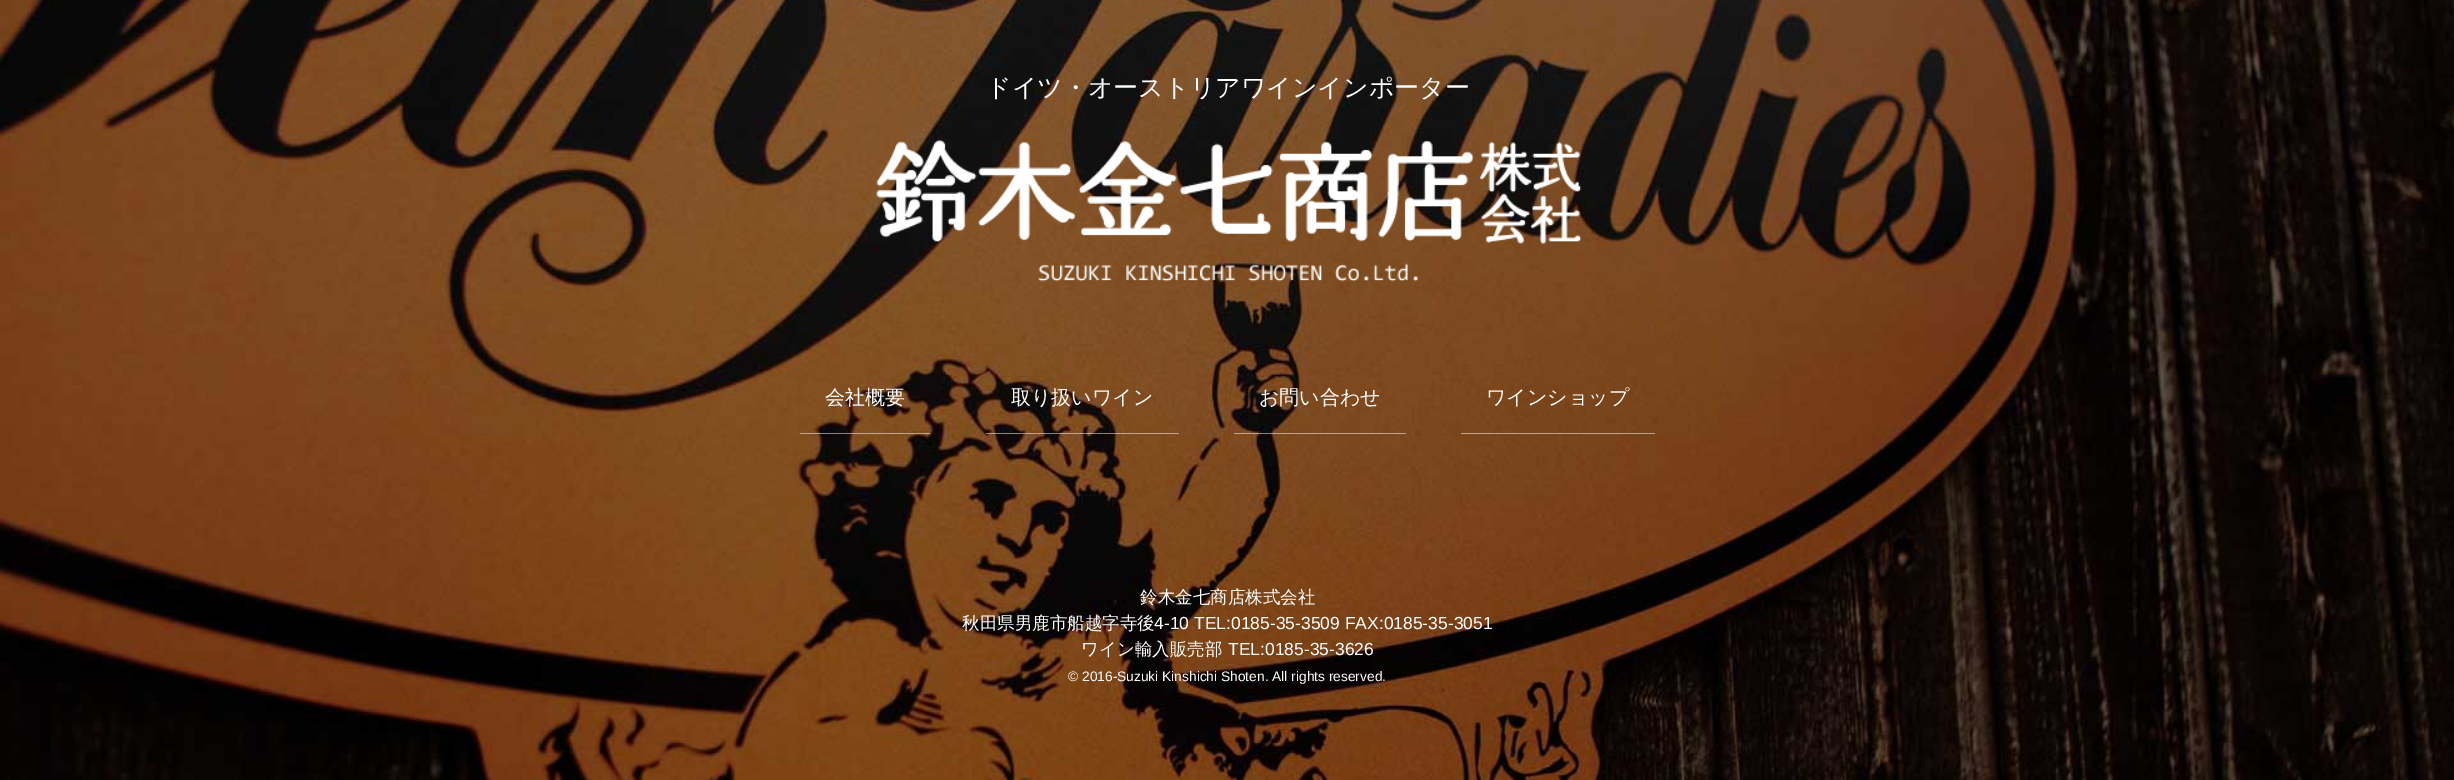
%!PS
<< /PageSize [2454 780] /PageUsesTransparency true >> setpagedevice
/co { dup -16 bitshift 255 div exch dup -8 bitshift 255 and 255 div exch 255 and 255 div setrgbcolor } def
/fn { [ exch dup neg 0 0 3 -1 roll 0 0 ] selectfont } def
/tx { co fn moveto show } def
/bx { co rectfill } def
/al { dup .setfillconstantalpha .setstrokeconstantalpha } def
/im { 5 dict begin { /h /w /y /x /name } { exch def } forall
  gsave x y translate w h scale
  w h 8 [w 0 0 h 0 0] name (r) file false 3 colorimage grestore end } def
0 .pushpdf14devicefilter
0 780 translate 1 -1 scale
4 setmiterlimit
0 0 2454 780 16#FFFFFF bx
(media/1.raw) 0 0 2454 780 im
(media/2.raw) 876 139 706 143 im
0.5 al
800 433 130 1 16#FFFFFF bx
986 433 193 1 16#FFFFFF bx
1234 433 172 1 16#FFFFFF bx
1461 433 194 1 16#FFFFFF bx
1 al
(ドイツ・オーストリアワインインポーター) 986 96 /WenQuanYiZenHei-Medium 25 16#FFFFFF tx
(会社概要) 825 404 /WenQuanYiZenHei-Medium 20 16#FFFFFF tx
(取り扱いワイン) 1011 404 /WenQuanYiZenHei-Medium 20 16#FFFFFF tx
(お問い合わせ) 1259 404 /WenQuanYiZenHei-Medium 20 16#FFFFFF tx
(ワインショップ) 1486 404 /WenQuanYiZenHei-Medium 20 16#FFFFFF tx
(鈴木金七商店株式会社) 1140 603 /WenQuanYiZenHei-Medium 17.5 16#FFFFFF tx
(秋田県男鹿市船越字寺後) 962 629 /WenQuanYiZenHei-Medium 17.5 16#FFFFFF tx
(4-10 TEL:0185-35-3509 FAX:0185-35-3051) 1154 629 /LiberationSans-Regular 17.5 16#FFFFFF tx
(ワイン輸入販売部) 1081 655 /WenQuanYiZenHei-Medium 17.5 16#FFFFFF tx
(TEL:0185-35-3626) 1228 655 /LiberationSans-Regular 17.5 16#FFFFFF tx
(© 2016-Suzuki Kinshichi Shoten. All rights reserved.) 1068 681 /LiberationSans-Regular 13.75 16#FFFFFF tx
.poppdf14devicefilter showpage
